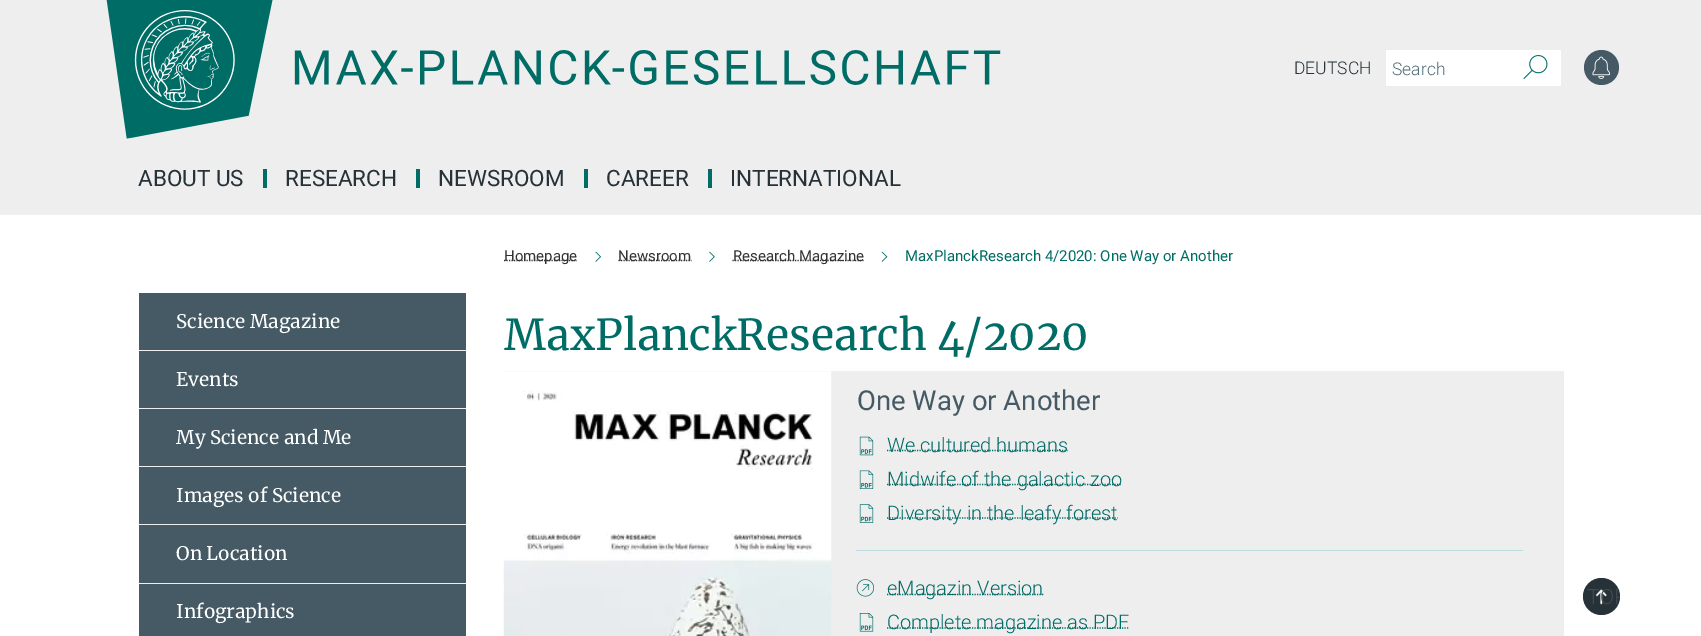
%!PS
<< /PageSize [1701 636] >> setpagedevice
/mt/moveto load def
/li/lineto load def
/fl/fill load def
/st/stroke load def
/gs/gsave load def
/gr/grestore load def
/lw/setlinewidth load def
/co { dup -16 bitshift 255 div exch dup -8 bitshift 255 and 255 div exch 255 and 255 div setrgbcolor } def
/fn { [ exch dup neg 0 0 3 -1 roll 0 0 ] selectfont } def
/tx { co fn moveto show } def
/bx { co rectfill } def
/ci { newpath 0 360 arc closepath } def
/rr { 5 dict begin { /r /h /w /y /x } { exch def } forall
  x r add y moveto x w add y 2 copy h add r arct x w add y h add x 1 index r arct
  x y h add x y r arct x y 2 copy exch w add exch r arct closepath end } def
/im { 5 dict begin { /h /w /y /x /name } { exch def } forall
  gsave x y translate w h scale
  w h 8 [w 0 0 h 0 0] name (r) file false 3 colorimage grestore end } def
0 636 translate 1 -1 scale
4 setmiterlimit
0 0 1701 636 16#FFFFFF bx
0 0 1701 215 16#EEEEEE bx
(media/1.raw) 106 0 895 139 im
1386 50 175 36 16#FFFFFF bx
(media/2.raw) 1523 55 25 25 im
16#455A64 co
1601.5 67.5 17.5 ci fl
(media/3.raw) 1592 56 18 23 im
263 169 4 19 16#006C66 bx
416 169 4 19 16#006C66 bx
584 169 4 19 16#006C66 bx
708 169 4 19 16#006C66 bx
139 293 327 57 16#455A64 bx
139 350 327 1 16#EEEEEE bx
139 351 327 57 16#455A64 bx
139 408 327 1 16#EEEEEE bx
139 409 327 115 16#455A64 bx
139 466 327 1 16#EEEEEE bx
139 524 327 1 16#EEEEEE bx
139 525 327 58 16#455A64 bx
139 583 327 1 16#EEEEEE bx
139 584 327 52 16#455A64 bx
16#333333 co
1.2 lw
[1.25 1.25] 0 setdash
504 260.5 mt 577 260.5 li st
(media/4.raw) 595 251 6 11 im
618.5 260.5 mt 691.5 260.5 li st
(media/5.raw) 709 251 6 11 im
732.5 260.5 mt 863.5 260.5 li st
(media/6.raw) 881 251 7 11 im
504 371 1060 265 16#EEEEEE bx
(media/7.raw) 503 371 329 265 im
(media/8.raw) 859 436 15 20 im
16#006C66 co
887 450.5 mt 1067.5 450.5 li st
(media/9.raw) 859 470 15 19 im
887 484.5 mt 1122 484.5 li st
(media/10.raw) 859 504 15 19 im
887 518 mt 1117.5 518 li st
856 550 667 1 16#BDDBE1 bx
(media/11.raw) 856 579 19 18 im
16#006C66 co
887 594.5 mt 1043.5 594.5 li st
(media/12.raw) 859 613 15 19 im
887 628 mt 1129.5 628 li st
16#263238 co
1601.5 596.5 18.5 ci fl
(media/13.raw) 1595 589 12 16 im
(DEUTSCH) 1294 74 /Roboto-Light 17.5 16#263238 tx
(Search) 1392 75 /Roboto-Light 17.5 16#546E7A tx
(ABOUT US) 138 186 /Roboto-Regular 22.5 16#263238 tx
(RESEARCH) 285 186 /Roboto-Regular 22.5 16#263238 tx
(NEWSROOM) 438 186 /Roboto-Regular 22.5 16#263238 tx
(CAREER) 606 186 /Roboto-Regular 22.5 16#263238 tx
(INTERNATIONAL) 730 186 /Roboto-Regular 22.5 16#263238 tx
(Science Magazine) 176 328 /Merriweather-Regular 18.75 16#FFFFFF tx
(Events) 176 386 /Merriweather-Regular 18.75 16#FFFFFF tx
(My Science and Me) 176 444 /Merriweather-Regular 18.75 16#FFFFFF tx
(Images of Science) 176 502 /Merriweather-Regular 18.75 16#FFFFFF tx
(On Location) 176 560 /Merriweather-Regular 18.75 16#FFFFFF tx
(Infographics) 176 618 /Merriweather-Regular 18.75 16#FFFFFF tx
(Homepage) 504 261 /Roboto-Regular 15 16#333333 tx
(Newsroom) 618 261 /Roboto-Regular 15 16#333333 tx
(Research Magazine) 733 261 /Roboto-Regular 15 16#333333 tx
(MaxPlanckResearch 4/2020: One Way or Another) 905 261 /Roboto-Regular 15 16#006C66 tx
(MaxPlanckResearch 4/2020) 504 350 /Merriweather-Regular 42.5 16#006C66 tx
(One Way or Another) 857 410 /Roboto-Regular 27.5 16#455A64 tx
(We cultured humans) 887 452 /Roboto-Light 20 16#006C66 tx
(Midwife of the galactic zoo) 887 486 /Roboto-Light 20 16#006C66 tx
(Diversity in the leafy forest) 887 520 /Roboto-Light 20 16#006C66 tx
(eMagazin Version) 887 595 /Roboto-Light 20 16#006C66 tx
(Complete magazine as PDF) 887 629 /Roboto-Light 20 16#006C66 tx
gs
1583 578 37 37 18.5 rr clip newpath
(TOP) 1587 604 /Roboto-Light 21 16#3F4A4F tx
gr
showpage
